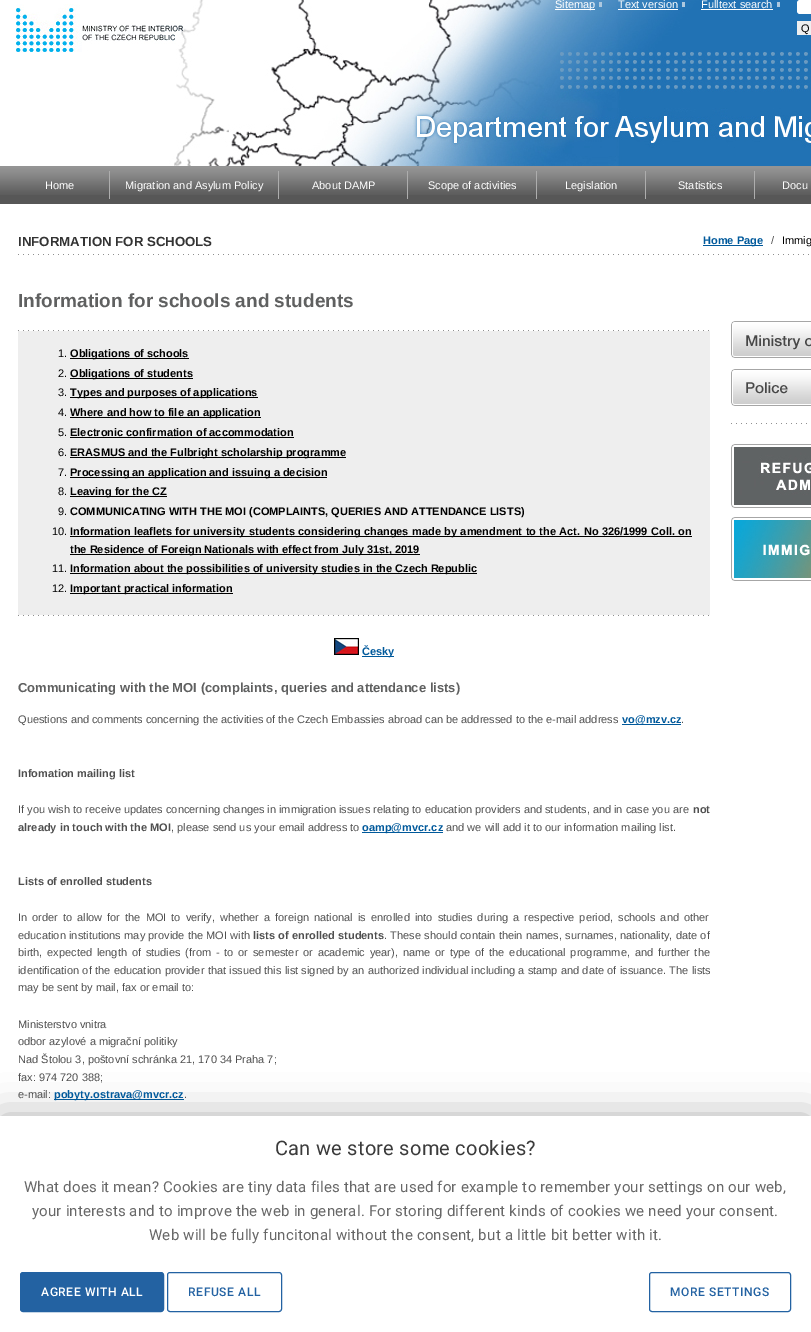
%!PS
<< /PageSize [811 1332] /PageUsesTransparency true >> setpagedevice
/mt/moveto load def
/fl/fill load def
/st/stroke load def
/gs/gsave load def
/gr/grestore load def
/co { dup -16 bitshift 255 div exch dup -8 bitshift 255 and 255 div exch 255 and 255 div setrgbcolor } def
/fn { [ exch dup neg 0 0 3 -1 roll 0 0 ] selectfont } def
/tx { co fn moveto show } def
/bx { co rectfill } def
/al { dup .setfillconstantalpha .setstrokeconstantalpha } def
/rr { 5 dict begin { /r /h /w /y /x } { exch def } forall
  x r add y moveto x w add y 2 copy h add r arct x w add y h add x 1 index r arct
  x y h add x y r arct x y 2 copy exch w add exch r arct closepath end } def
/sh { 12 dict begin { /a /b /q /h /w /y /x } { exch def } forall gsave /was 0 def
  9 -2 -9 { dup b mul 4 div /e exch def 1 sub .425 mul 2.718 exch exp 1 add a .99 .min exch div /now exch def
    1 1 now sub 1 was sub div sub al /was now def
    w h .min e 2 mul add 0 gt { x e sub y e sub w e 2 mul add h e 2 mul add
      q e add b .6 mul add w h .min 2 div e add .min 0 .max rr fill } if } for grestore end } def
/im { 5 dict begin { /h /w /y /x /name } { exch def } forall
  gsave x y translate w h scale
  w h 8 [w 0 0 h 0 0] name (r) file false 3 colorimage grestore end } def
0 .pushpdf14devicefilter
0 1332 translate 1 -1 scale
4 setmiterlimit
0 0 811 1332 16#FFFFFF bx
(media/1.raw) 0 0 811 166 im
599 2 3 5 16#ADC8DF bx
555 9 40 1 16#FFFFFF bx
682 2 3 5 16#ADC8DF bx
618 9 60 1 16#FFFFFF bx
777 2 3 5 16#ADC8DF bx
701 9 72 1 16#FFFFFF bx
797 0 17 14 3 rr fl
797 21 14 14 16#EFEFEF bx
0 195 811 9 16#575757 bx
(media/2.raw) 0 166 811 29 im
109 171 1 28 16#ADADAD bx
278 171 1 28 16#ADADAD bx
407 171 1 28 16#ADADAD bx
536 171 1 28 16#ADADAD bx
645 171 1 28 16#ADADAD bx
754 171 1 28 16#ADADAD bx
(media/3.raw) 18 254 791 1 im
703 245 60 1 16#00599B bx
18 331 692 284 16#EEEEEE bx
(media/4.raw) 18 330 692 1 im
(media/4.raw) 18 615 692 1 im
70 358 119 1 16#000000 bx
70 378 123 1 16#000000 bx
70 397 188 1 16#000000 bx
70 417 191 1 16#000000 bx
70 437 224 1 16#000000 bx
70 457 276 1 16#000000 bx
70 477 257 1 16#000000 bx
70 496 97 1 16#000000 bx
70 536 622 1 16#000000 bx
70 554 350 1 16#000000 bx
70 573 407 1 16#000000 bx
70 593 163 1 16#000000 bx
(media/5.raw) 334 638 25 17 im
362 656 32 1 16#00599B bx
622 724 59 1 16#00599B bx
362 832 81 1 16#00599B bx
54 1099 130 1 16#00599B bx
(media/6.raw) 731 423 76 1 im
(media/7.raw) 731 321 80 37 im
(media/8.raw) 731 369 80 37 im
(media/9.raw) 731 444 80 64 im
(media/10.raw) 731 517 80 64 im
16#3B3B3B co
0 1117 811 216 0 20 .4 sh
0 1116 811 216 16#FFFFFF bx
16#2362A2 co
20.5 1272.5 143 39 2.5 rr gs fl gr
st
167.5 1272.5 114 39 2.5 rr st
649.5 1272.5 141 39 2.5 rr st
(Sitemap) 555 8 /LiberationSans-Regular 11 16#FFFFFF tx
(Text version) 618 8 /LiberationSans-Regular 11 16#FFFFFF tx
(Fulltext search) 701 8 /LiberationSans-Regular 11 16#FFFFFF tx
(Q) 801 32 /LiberationSans-Regular 11 16#000000 tx
(Home) 45 189 /LiberationSans-Regular 11 16#FFFFFF tx
(Migration and Asylum Policy) 125 189 /LiberationSans-Regular 11 16#FFFFFF tx
(About DAMP) 312 189 /LiberationSans-Regular 11 16#FFFFFF tx
(Scope of activities) 428 189 /LiberationSans-Regular 11 16#FFFFFF tx
(Legislation) 565 189 /LiberationSans-Regular 11 16#FFFFFF tx
(Statistics) 678 189 /LiberationSans-Regular 11 16#FFFFFF tx
(Docu) 782 189 /LiberationSans-Regular 11 16#FFFFFF tx
(INFORMATION FOR SCHOOLS) 18 246 /LiberationSans-Bold 13.25 16#333333 tx
(Home Page) 703 244 /LiberationSans-Bold 11 16#00599B tx
(/) 771 244 /LiberationSans-Regular 11 16#4F4F4F tx
(Immig) 782 244 /LiberationSans-Regular 11 16#000000 tx
(Information for schools and students) 18 307 /LiberationSans-Bold 19 16#5F6060 tx
(1.) 58 357 /LiberationSans-Regular 11 16#000000 tx
(Obligations of schools) 70 357 /LiberationSans-Bold 11 16#000000 tx
(2.) 58 377 /LiberationSans-Regular 11 16#000000 tx
(Obligations of students) 70 377 /LiberationSans-Bold 11 16#000000 tx
(3.) 58 396 /LiberationSans-Regular 11 16#000000 tx
(Types and purposes of applications) 70 396 /LiberationSans-Bold 11 16#000000 tx
(4.) 58 416 /LiberationSans-Regular 11 16#000000 tx
(Where and how to file an application) 70 416 /LiberationSans-Bold 11 16#000000 tx
(5.) 58 436 /LiberationSans-Regular 11 16#000000 tx
(Electronic confirmation of accommodation) 70 436 /LiberationSans-Bold 11 16#000000 tx
(6.) 58 456 /LiberationSans-Regular 11 16#000000 tx
(ERASMUS and the Fulbright scholarship programme) 70 456 /LiberationSans-Bold 11 16#000000 tx
(7.) 58 476 /LiberationSans-Regular 11 16#000000 tx
(Processing an application and issuing a decision) 70 476 /LiberationSans-Bold 11 16#000000 tx
(8.) 58 495 /LiberationSans-Regular 11 16#000000 tx
(Leaving for the CZ) 70 495 /LiberationSans-Bold 11 16#000000 tx
(9.) 58 515 /LiberationSans-Regular 11 16#000000 tx
(COMMUNICATING WITH THE MOI \(COMPLAINTS, QUERIES AND ATTENDANCE LISTS\)) 70 515 /LiberationSans-Bold 11 16#000000 tx
(10.) 52 535 /LiberationSans-Regular 11 16#000000 tx
/LiberationSans-Bold 11 fn
70 535 mt .4 0 32 (Information leaflets for university students considering changes made by amendment to the Act. No 326/1999 Coll. on) widthshow
(the Residence of Foreign Nationals with effect from July 31st, 2019) 70 553 /LiberationSans-Bold 11 16#000000 tx
(11.) 52 572 /LiberationSans-Regular 11 16#000000 tx
(Information about the possibilities of university studies in the Czech Republic) 70 572 /LiberationSans-Bold 11 16#000000 tx
(12.) 52 592 /LiberationSans-Regular 11 16#000000 tx
(Important practical information) 70 592 /LiberationSans-Bold 11 16#000000 tx
(Česky) 362 655 /LiberationSans-Bold 11 16#00599B tx
(Communicating with the MOI \(complaints, queries and attendance lists\)) 18 692 /LiberationSans-Bold 13 16#5F6060 tx
(Questions and comments concerning the activities of the Czech Embassies abroad can be addressed to the e-mail address) 18 723 /LiberationSans-Regular 11 16#4F4F4F tx
(vo@mzv.cz) 622 723 /LiberationSans-Bold 11 16#00599B tx
(.) 681 723 /LiberationSans-Regular 11 16#4F4F4F tx
(Infomation mailing list) 18 777 /LiberationSans-Bold 11 16#4F4F4F tx
(If you wish to receive updates concerning changes in immigration issues relating to education providers and students, and in case you are) 18 813 /LiberationSans-Regular 11 16#4F4F4F tx
(not) 693 813 /LiberationSans-Bold 11 16#4F4F4F tx
(already in touch with the MOI) 18 831 /LiberationSans-Bold 11 16#4F4F4F tx
(, please send us your email address to) 171 831 /LiberationSans-Regular 11 16#4F4F4F tx
(oamp@mvcr.cz) 362 831 /LiberationSans-Bold 11 16#00599B tx
(and we will add it to our information mailing list.) 446 831 /LiberationSans-Regular 11 16#4F4F4F tx
(Lists of enrolled students) 18 885 /LiberationSans-Bold 11 16#4F4F4F tx
/LiberationSans-Regular 11 fn
18 921 mt 2 0 32 (In order to allow for the MOI to verify, whether a foreign national is enrolled into studies during a respective period, schools and other) widthshow
18 939 mt .25 0 32 (education institutions may provide the MOI with) widthshow
/LiberationSans-Bold 11 fn
253 939 mt .25 0 32 (lists of enrolled students) widthshow
/LiberationSans-Regular 11 fn
384 939 mt .25 0 32 (. These should contain thein names, surnames, nationality, date of) widthshow
18 956 mt 1.8 0 32 (birth, expected length of studies \(from - to or semester or academic year\), name or type of the educational programme, and further the) widthshow
18 974 mt .25 0 32 (identification of the education provider that issued this list signed by an authorized individual including a stamp and date of issuance. The lists) widthshow
(may be sent by mail, fax or email to:) 18 991 /LiberationSans-Regular 11 16#4F4F4F tx
(Ministerstvo vnitra) 18 1028 /LiberationSans-Regular 11 16#4F4F4F tx
(odbor azylové a migrační politiky) 18 1045 /LiberationSans-Regular 11 16#4F4F4F tx
(Nad Štolou 3, poštovní schránka 21, 170 34 Praha 7;) 18 1063 /LiberationSans-Regular 11 16#4F4F4F tx
(fax: 974 720 388;) 18 1081 /LiberationSans-Regular 11 16#4F4F4F tx
(e-mail:) 18 1098 /LiberationSans-Regular 11 16#4F4F4F tx
(pobyty.ostrava@mvcr.cz) 54 1098 /LiberationSans-Bold 11 16#00599B tx
(.) 184 1098 /LiberationSans-Regular 11 16#4F4F4F tx
/Roboto-Regular 20 fn
16#3B3B3B co
275 1155 mt .25 0 (Can we store some cookies?) ashow
/Roboto-Regular 15 fn
16#686868 co
24 1192 mt .19 0 (What does it mean? Cookies are tiny data files that are used for example to remember your settings on our web,) ashow
32 1216 mt .19 0 (your interests and to improve the web in general. For storing different kinds of cookies we need your consent.) ashow
149 1240 mt .19 0 (Web will be fully funcitonal without the consent, but a little bit better with it.) ashow
/Roboto-Medium 12 fn
16#FFFFFF co
41 1296 mt .6 0 (AGREE WITH ALL) ashow
16#2362A2 co
188 1296 mt .6 0 (REFUSE ALL) ashow
670 1296 mt .6 0 (MORE SETTINGS) ashow
.poppdf14devicefilter showpage
